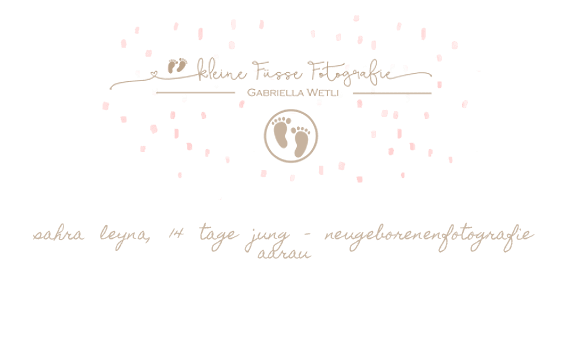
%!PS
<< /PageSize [569 361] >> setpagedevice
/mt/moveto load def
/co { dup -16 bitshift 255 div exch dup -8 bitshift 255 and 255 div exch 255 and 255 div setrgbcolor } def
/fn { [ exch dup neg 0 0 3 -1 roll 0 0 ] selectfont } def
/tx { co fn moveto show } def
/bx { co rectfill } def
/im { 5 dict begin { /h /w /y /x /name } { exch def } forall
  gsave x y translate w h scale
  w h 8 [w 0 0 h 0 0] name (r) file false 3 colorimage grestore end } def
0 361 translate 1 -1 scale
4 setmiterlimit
0 0 569 361 16#FFFFFF bx
(media/1.raw) 102 15 379 185 im
/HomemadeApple-Regular 16 fn
16#C9B6A2 co
35 239 mt 10 0 32 (sahra leyna, 14 tage jung – neugeborenenfotografie) widthshow
(aarau) 258 258 /HomemadeApple-Regular 16 16#C9B6A2 tx
showpage
